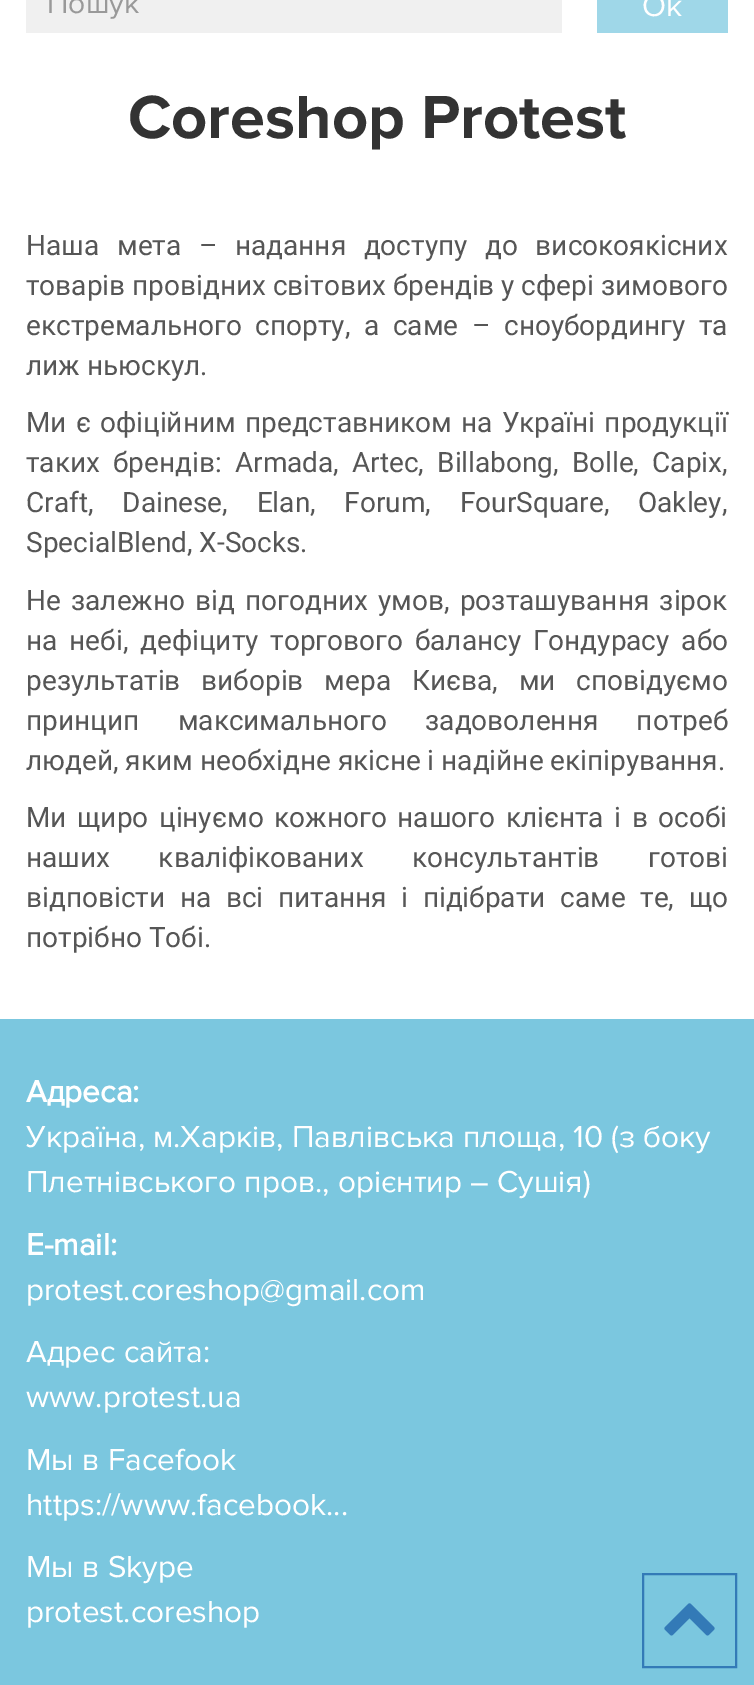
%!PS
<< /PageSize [754 1685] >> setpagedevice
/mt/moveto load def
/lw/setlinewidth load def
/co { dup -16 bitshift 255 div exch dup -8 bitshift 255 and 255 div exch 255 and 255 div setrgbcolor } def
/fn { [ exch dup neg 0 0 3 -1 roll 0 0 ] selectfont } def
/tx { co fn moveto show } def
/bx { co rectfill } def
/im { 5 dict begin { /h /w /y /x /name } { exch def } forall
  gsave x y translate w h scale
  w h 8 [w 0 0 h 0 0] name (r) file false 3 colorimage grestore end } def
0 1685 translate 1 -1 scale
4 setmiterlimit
0 0 754 1685 16#FFFFFF bx
26 0 536 33 16#F0F0F0 bx
597 0 131 33 16#9FD7E8 bx
0 1019 754 666 16#7BC7DF bx
16#337AB7 co
2 lw
643 1574 93 93 rectstroke
(media/1.raw) 664 1603 51 33 im
(Пошук) 47 13 /ProximaNova-Regular 30 16#999999 tx
(Ok) 642 16 /ProximaNova-Regular 31.5 16#FFFFFF tx
(Coreshop Protest) 128 138 /ProximaNova-Bold 63 16#333333 tx
/Roboto-Regular 28 fn
16#565656 co
26 255 mt 10.75 0 32 (Наша мета – надання доступу до високоякісних) widthshow
(товарів провідних світових брендів у сфері зимового) 26 295 /Roboto-Regular 28 16#565656 tx
26 335 mt 6.75 0 32 (екстремального спорту, а саме – сноубордингу та) widthshow
(лиж ньюскул.) 26 375 /Roboto-Regular 28 16#565656 tx
26 432 mt 2.25 0 32 (Ми є офіційним представником на Україні продукції) widthshow
26 472 mt 6.25 0 32 (таких брендів: Armada, Artec, Billabong, Bolle, Capix,) widthshow
26 512 mt 22 0 32 (Craft, Dainese, Elan, Forum, FourSquare, Oakley,) widthshow
(SpecialBlend, X-Socks.) 26 552 /Roboto-Regular 28 16#565656 tx
26 610 mt 3.25 0 32 (Не залежно від погодних умов, розташування зірок) widthshow
26 650 mt 5 0 32 (на небі, дефіциту торгового балансу Гондурасу або) widthshow
26 690 mt 14 0 32 (результатів виборів мера Києва, ми сповідуємо) widthshow
26 730 mt 31.5 0 32 (принцип максимального задоволення потреб) widthshow
(людей, яким необхідне якісне і надійне екіпірування.) 26 770 /Roboto-Regular 28 16#565656 tx
26 827 mt 3.75 0 32 (Ми щиро цінуємо кожного нашого клієнта і в особі) widthshow
26 867 mt 41.5 0 32 (наших кваліфікованих консультантів готові) widthshow
26 907 mt 7.75 0 32 (відповісти на всі питання і підібрати саме те, що) widthshow
(потрібно Тобі.) 26 947 /Roboto-Regular 28 16#565656 tx
(Адреса:) 26 1102 /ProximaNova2-Bold 31.5 16#FFFFFF tx
(Україна, м.Харків, Павлівська площа, 10 \(з боку) 26 1147 /ProximaNova-Regular 31.5 16#FFFFFF tx
(Плетнівського пров., орієнтир – Сушія\)) 26 1192 /ProximaNova-Regular 31.5 16#FFFFFF tx
(E-mail:) 26 1255 /ProximaNova2-Bold 31.5 16#FFFFFF tx
(protest.coreshop@gmail.com) 26 1300 /ProximaNova-Regular 31.5 16#FFFFFF tx
(Адрес сайта:) 26 1362 /ProximaNova-Regular 31.5 16#FFFFFF tx
(www.protest.ua) 26 1407 /ProximaNova-Regular 31.5 16#FFFFFF tx
(Мы в Facefook) 26 1470 /ProximaNova-Regular 31.5 16#FFFFFF tx
(https://www.facebook...) 26 1515 /ProximaNova-Regular 31.5 16#FFFFFF tx
(Мы в Skype) 26 1577 /ProximaNova-Regular 31.5 16#FFFFFF tx
(protest.coreshop) 26 1622 /ProximaNova-Regular 31.5 16#FFFFFF tx
showpage
